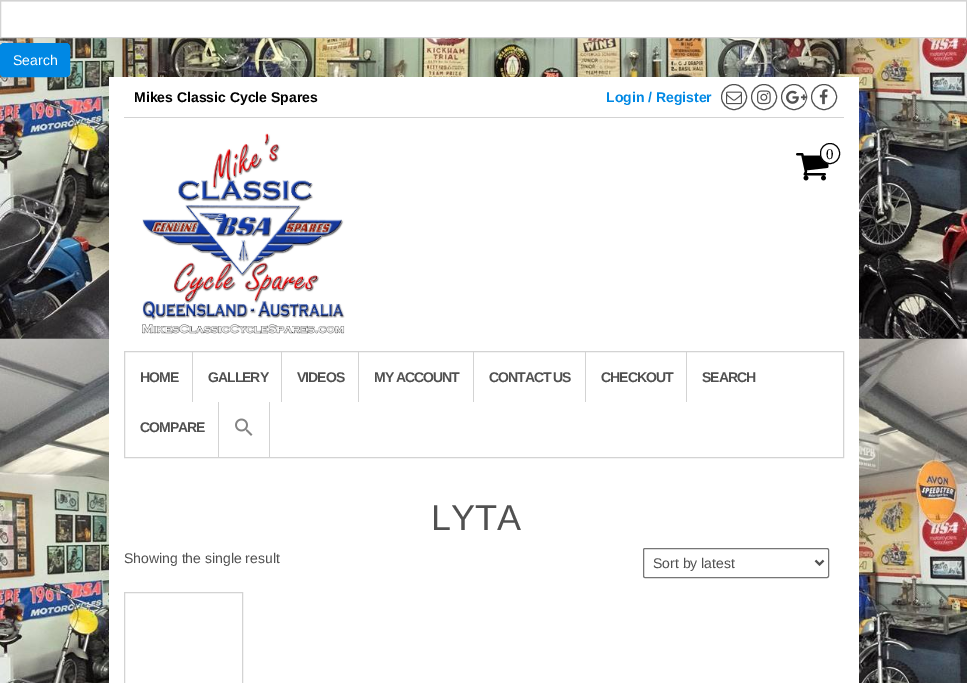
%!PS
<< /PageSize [967 683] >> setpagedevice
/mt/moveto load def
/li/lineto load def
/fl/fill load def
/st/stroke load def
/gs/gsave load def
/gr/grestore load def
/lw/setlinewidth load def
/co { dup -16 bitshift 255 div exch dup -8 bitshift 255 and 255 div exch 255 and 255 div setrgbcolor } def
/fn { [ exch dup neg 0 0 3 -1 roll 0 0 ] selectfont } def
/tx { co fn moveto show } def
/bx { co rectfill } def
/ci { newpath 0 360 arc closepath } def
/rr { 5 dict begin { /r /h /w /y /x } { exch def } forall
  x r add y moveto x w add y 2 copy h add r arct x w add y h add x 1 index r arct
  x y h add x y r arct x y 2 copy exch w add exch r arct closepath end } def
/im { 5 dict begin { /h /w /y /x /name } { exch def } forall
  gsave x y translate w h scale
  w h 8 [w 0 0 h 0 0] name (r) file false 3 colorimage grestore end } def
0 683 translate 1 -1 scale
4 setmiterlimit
0 0 967 683 16#FFFFFF bx
(media/1.raw) 0 38 967 645 im
1 1 965 1 16#ECECEC bx
16#D3D3D3 co
.5 .5 966 37 rectstroke
16#0088E4 co
.5 43.5 69 33 3.5 rr gs fl gr
st
109 77 750 606 16#FFFFFF bx
124 117 720 1 16#D3D3D3 bx
16#515151 co
734 97 12.5 ci st
(media/2.raw) 726 91 16 14 im
764 97 12.5 ci st
(media/3.raw) 757 90 14 15 im
794 97 12.5 ci st
(media/4.raw) 786 90 21 14 im
824 97 12.5 ci st
(media/5.raw) 819 89 9 16 im
(media/6.raw) 142 133 203 201 im
(media/7.raw) 796 153 33 28 im
16#FFFFFF co
820.5 143.5 19 20 9.5 rr gs fl gr
16#000000 co
st
16#D3D3D3 co
124.5 351.5 719 106 rectstroke
192 352 1 50 16#D3D3D3 bx
281 352 1 50 16#D3D3D3 bx
358 352 1 50 16#D3D3D3 bx
473 352 1 50 16#D3D3D3 bx
585 352 1 50 16#D3D3D3 bx
686 352 1 50 16#D3D3D3 bx
269 402 1 55 16#D3D3D3 bx
218 402 1 55 16#D3D3D3 bx
(media/8.raw) 235 418 18 18 im
16#767676 co
643.5 548.5 185 29 1.5 rr st
16#515151 co
2 lw
815.5 560.5 mt 819.5 564.5 li 823.5 560.5 li st
16#D3D3D3 co
1 lw
124.5 592.5 118 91 rectstroke
(Search) 13 65 /LiberationSans-Regular 14 16#FFFFFF tx
(Mikes Classic Cycle Spares) 134 102 /LiberationSans-Bold 14 16#000000 tx
(Login / Register) 606 102 /LiberationSans-Bold 14 16#0088E4 tx
(0) 826 159 /LiberationSerif-Regular 15 16#000000 tx
/LiberationSans-Bold 14 fn
16#505050 co
140 382 mt -1 0 (HOME) ashow
208 382 mt -1 0 (GALLERY) ashow
297 382 mt -1 0 (VIDEOS) ashow
374 382 mt -1 0 (MY ACCOUNT) ashow
489 382 mt -1 0 (CONTACT US) ashow
601 382 mt -1 0 (CHECKOUT) ashow
702 382 mt -1 0 (SEARCH) ashow
140 432 mt -1 0 (COMPARE) ashow
(LYTA) 431 530 /LiberationSans-Regular 36 16#505050 tx
(Showing the single result) 124 563 /LiberationSans-Regular 14 16#505050 tx
(Sort by latest) 653 568 /LiberationSans-Regular 14 16#505050 tx
showpage
